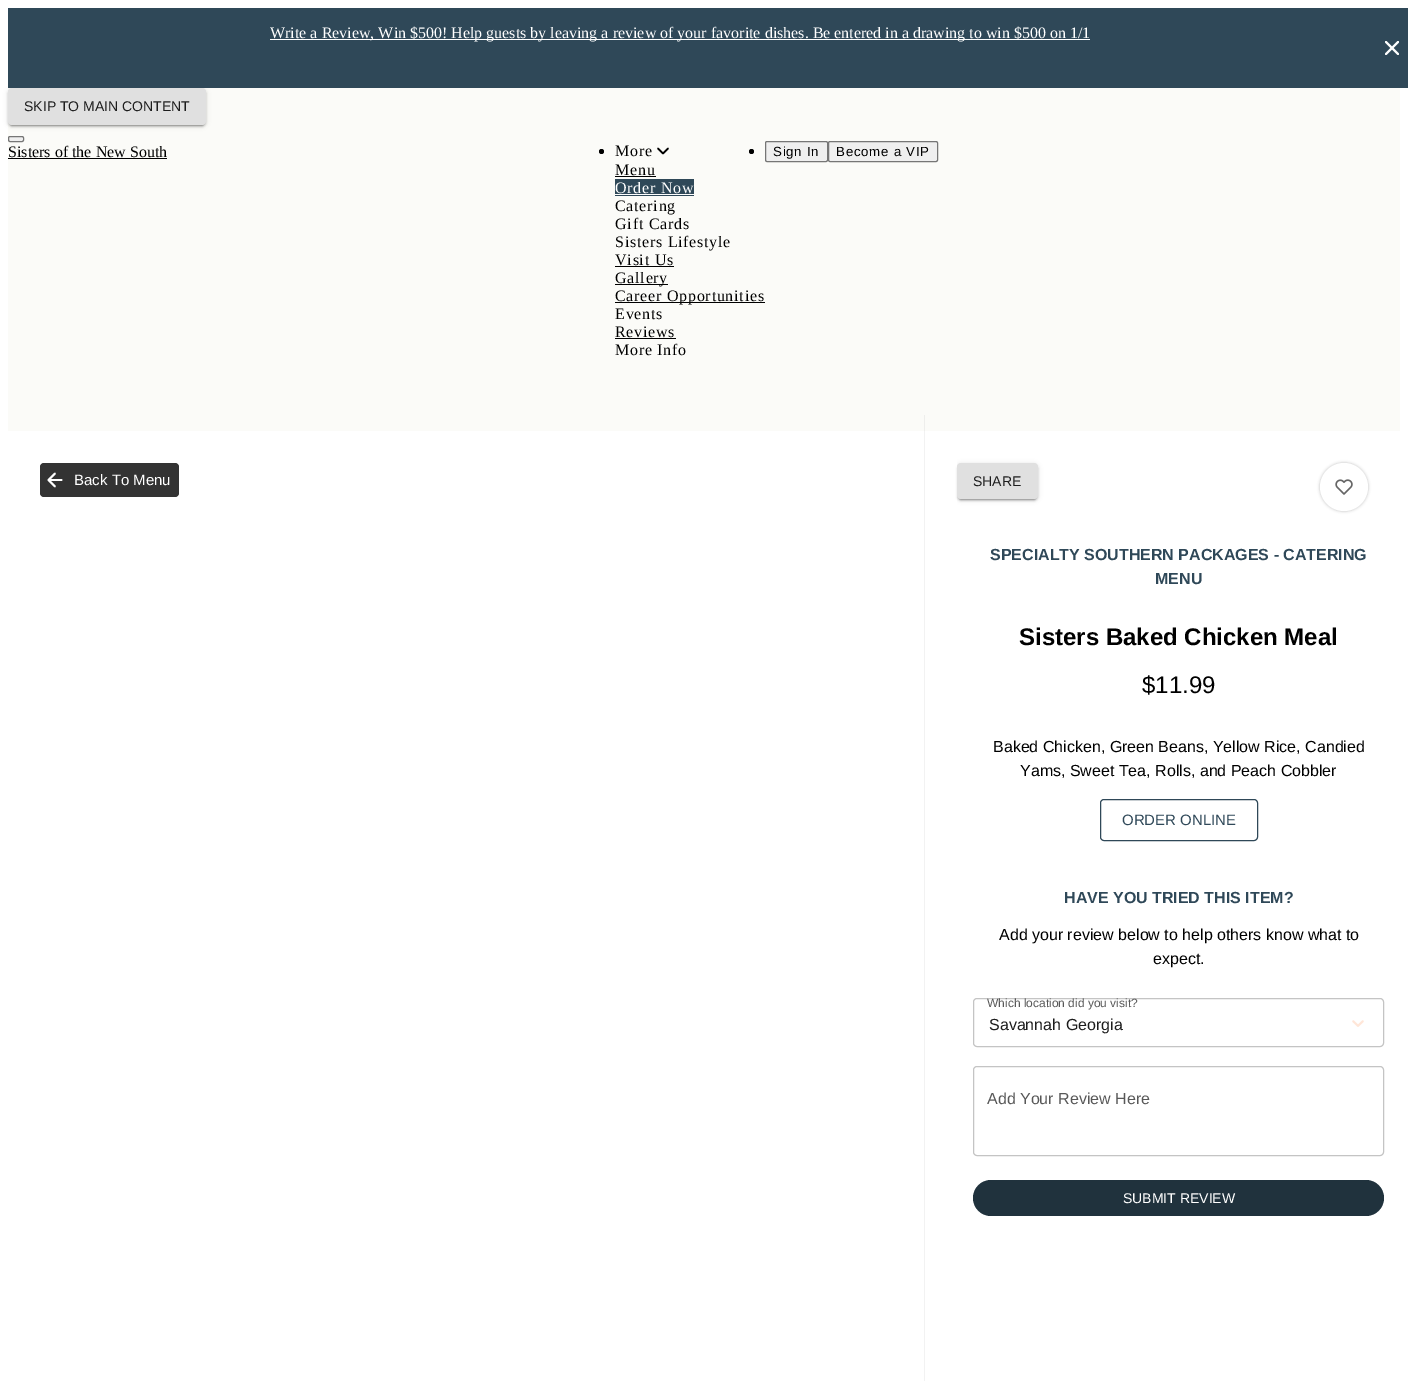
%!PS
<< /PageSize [1408 1381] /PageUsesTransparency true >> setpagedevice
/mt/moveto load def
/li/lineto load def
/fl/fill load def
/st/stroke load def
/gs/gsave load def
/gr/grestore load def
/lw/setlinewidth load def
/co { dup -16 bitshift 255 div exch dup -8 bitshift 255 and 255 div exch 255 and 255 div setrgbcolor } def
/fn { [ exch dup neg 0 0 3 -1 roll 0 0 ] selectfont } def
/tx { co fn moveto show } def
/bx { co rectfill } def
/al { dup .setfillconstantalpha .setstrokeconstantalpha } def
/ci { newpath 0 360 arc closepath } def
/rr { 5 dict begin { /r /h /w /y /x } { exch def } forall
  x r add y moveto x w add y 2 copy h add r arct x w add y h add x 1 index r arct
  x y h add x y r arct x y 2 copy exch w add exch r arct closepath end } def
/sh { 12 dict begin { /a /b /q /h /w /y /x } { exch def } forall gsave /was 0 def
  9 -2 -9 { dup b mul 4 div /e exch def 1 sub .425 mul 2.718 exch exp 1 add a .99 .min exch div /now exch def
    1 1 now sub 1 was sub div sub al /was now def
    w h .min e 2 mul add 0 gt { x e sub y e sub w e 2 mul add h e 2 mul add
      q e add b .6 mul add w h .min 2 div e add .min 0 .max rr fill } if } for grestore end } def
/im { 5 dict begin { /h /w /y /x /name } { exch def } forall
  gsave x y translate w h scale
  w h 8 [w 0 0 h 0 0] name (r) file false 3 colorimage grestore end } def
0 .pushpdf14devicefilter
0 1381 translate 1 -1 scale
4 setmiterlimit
0 0 1408 1381 16#FFFFFF bx
8 88 1392 343 16#FBFBF8 bx
16#000000 co
8 89 198 37 4 2.5 .12 sh
8 90 198 37 4 1 .14 sh
8 8 1400 80 16#2F4858 bx
270 39 820 1 16#FFFFFF bx
2 lw
1 setlinecap
1 setlinejoin
1398 42 mt 1386 54 li 1386 42 mt 1398 54 li st
924 415 1 16 16#EEEEEC bx
16#000000 co
10 93 194 33 2 .5 .2 sh
16#E0E0E0 co
8 88 198 37 4 rr fl
16#EFEFEF co
8.5 136.5 15 5 1.5 rr gs fl gr
16#767676 co
1 lw
0 setlinecap
0 setlinejoin
st
8 158 159 1 16#000000 bx
601.5 151.5 2.5 ci fl
1.6 lw
1 setlinecap
1 setlinejoin
658 148.5 mt 663 153.5 li 668 148.5 li st
615 176 41 1 16#000000 bx
615 179 79 17 16#2F4858 bx
615 194 79 1 16#FFFFFF bx
615 266 59 1 16#000000 bx
615 284 53 1 16#000000 bx
615 302 150 1 16#000000 bx
615 338 61 1 16#000000 bx
751.5 151.5 2.5 ci fl
16#EFEFEF co
765.5 141.5 62 20 1.5 rr gs fl gr
16#767676 co
1 lw
0 setlinecap
0 setlinejoin
st
16#EFEFEF co
828.5 141.5 109 20 1.5 rr gs fl gr
16#767676 co
st
924 431 1 950 16#F2F2F2 bx
16#333333 co
40 463 139 34 4 rr fl
16#FFFFFF co
1.8 lw
1 setlinecap
1 setlinejoin
61.5 480 mt 48.5 480 li 55 486.5 mt 48.5 480 li 55 473.5 li st
gs
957 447 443 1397 rectclip
16#000000 co
957 464 81 36 4 2.5 .12 sh
gr
16#000000 co
957 465 81 36 4 1 .14 sh
959 468 77 32 2 .5 .2 sh
16#E0E0E0 co
957 463 81 36 4 rr fl
16#000000 co
1320 463 48 48 24 1.5 .25 sh
16#FFFFFF co
1344 487 24 ci fl
(media/1.raw) 1335 479 18 16 im
16#2F4858 co
1 lw
0 setlinecap
0 setlinejoin
1100.5 799.5 157 41 3.5 rr st
(media/2.raw) 1352 1020 12 7 im
16#C4C4C4 co
973.5 998.5 410 48 3.5 rr st
973.5 1066.5 410 89 3.5 rr st
16#20323D co
973 1180 411 36 18 rr fl
(Write a Review, Win $500! Help guests by leaving a review of your favorite dishes. Be entered in a drawing to win $500 on 1/1) 270 38 /LiberationSerif-Regular 16 16#FFFFFF tx
(SKIP TO MAIN CONTENT) 24 111 /LiberationSans-Regular 14 16#1D1D1D tx
(Sisters of the New South) 8 157 /LiberationSerif-Regular 16 16#000000 tx
615 156 mt .75 0 (More) ashow
615 175 mt .75 0 (Menu) ashow
16#FFFFFF co
615 193 mt .75 0 (Order Now) ashow
16#000000 co
615 211 mt .75 0 (Catering) ashow
615 229 mt .75 0 (Gift Cards) ashow
615 247 mt .75 0 (Sisters Lifestyle) ashow
615 265 mt .75 0 (Visit Us) ashow
615 283 mt .75 0 (Gallery) ashow
615 301 mt .75 0 (Career Opportunities) ashow
615 319 mt .75 0 (Events) ashow
615 337 mt .75 0 (Reviews) ashow
615 355 mt .75 0 (More Info) ashow
/LiberationSans-Regular 13.25 fn
773 156 mt .75 0 (Sign In) ashow
836 156 mt .75 0 (Become a VIP) ashow
(Back To Menu) 74 485 /LiberationSans-Regular 15 16#FFFFFF tx
(SHARE) 973 486 /LiberationSans-Regular 14 16#1D1D1D tx
(SPECIALTY SOUTHERN PACKAGES - CATERING) 990 560 /LiberationSans-Bold 16 16#2F4858 tx
(MENU) 1155 584 /LiberationSans-Bold 16 16#2F4858 tx
(Sisters Baked Chicken Meal) 1019 645 /LiberationSans-Bold 24 16#000000 tx
($11.99) 1142 693 /LiberationSans-Regular 24 16#000000 tx
(Baked Chicken, Green Beans, Yellow Rice, Candied) 993 752 /LiberationSans-Regular 16 16#000000 tx
(Yams, Sweet Tea, Rolls, and Peach Cobbler) 1020 776 /LiberationSans-Regular 16 16#000000 tx
(ORDER ONLINE) 1122 825 /LiberationSans-Regular 15 16#2F4858 tx
(HAVE YOU TRIED THIS ITEM?) 1064 903 /LiberationSans-Bold 16 16#2F4858 tx
(Add your review below to help others know what to) 999 940 /LiberationSans-Regular 16 16#000000 tx
(expect.) 1153 964 /LiberationSans-Regular 16 16#000000 tx
(Which location did you visit?) 987 1007 /LiberationSans-Regular 12 16#585858 tx
(Savannah Georgia) 989 1030 /LiberationSans-Regular 16 16#1D1D1D tx
(Add Your Review Here) 987 1104 /LiberationSans-Regular 16 16#585858 tx
(SUBMIT REVIEW) 1123 1203 /LiberationSans-Regular 14 16#FFFFFF tx
.poppdf14devicefilter showpage
